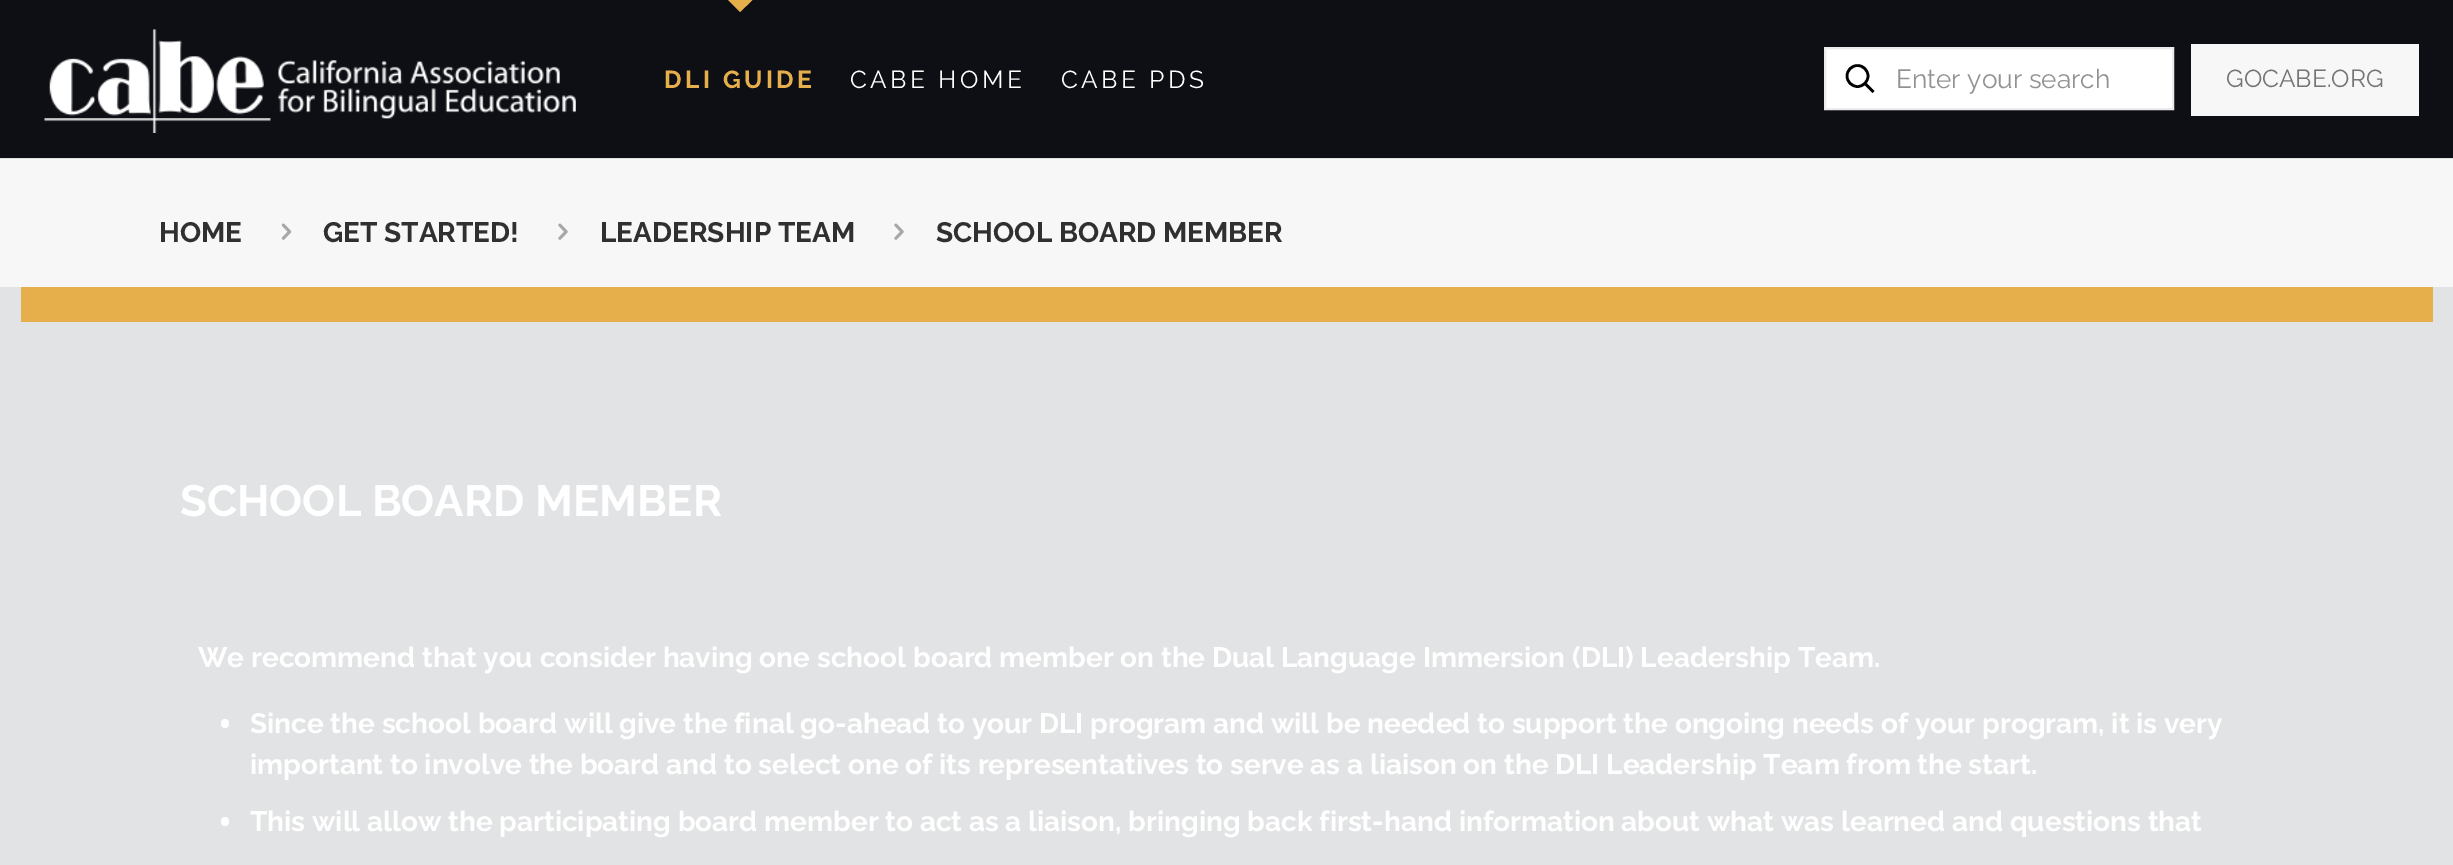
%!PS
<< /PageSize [2453 865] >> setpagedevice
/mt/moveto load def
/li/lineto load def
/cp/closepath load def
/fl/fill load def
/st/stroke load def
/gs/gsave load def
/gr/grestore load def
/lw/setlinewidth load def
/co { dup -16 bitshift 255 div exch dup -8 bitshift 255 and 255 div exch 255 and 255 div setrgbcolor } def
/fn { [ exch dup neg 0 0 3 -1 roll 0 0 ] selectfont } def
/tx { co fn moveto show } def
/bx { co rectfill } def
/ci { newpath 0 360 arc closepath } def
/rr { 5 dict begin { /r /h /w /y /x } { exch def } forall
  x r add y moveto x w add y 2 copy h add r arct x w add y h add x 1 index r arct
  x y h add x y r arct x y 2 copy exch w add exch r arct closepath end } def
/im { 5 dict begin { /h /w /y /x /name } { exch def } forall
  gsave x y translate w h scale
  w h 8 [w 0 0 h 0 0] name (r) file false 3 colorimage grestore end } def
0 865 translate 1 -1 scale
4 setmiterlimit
0 0 2453 865 16#E1E3E4 bx
0 0 2453 158 16#0D0F14 bx
0 158 2453 1 16#E1E1E1 bx
(media/1.raw) 44 29 532 104 im
16#E6AF4B co
728 0 mt 752.5 0 li 740 12 li cp fl
16#FFFFFF co
1825 48 mt 2173 48 li 2173 109 li 1825 109 li cp gs fl gr
16#EBEBEB co
2 lw
st
16#000000 co
2.6 lw
1857.5 76 10.5 ci st
1865 83.5 mt 1873.5 92 li st
2191 44 228 72 16#F7F7F7 bx
0 159 2453 128 16#F7F7F7 bx
(media/2.raw) 281 223 11 17 im
(media/3.raw) 558 223 10 17 im
(media/3.raw) 894 223 10 17 im
21 287 2412 35 16#E6AF4B bx
16#FFFFFF co
221 719 8 9 4 rr fl
221 817 8 9 4 rr fl
/Raleway-Bold 24.5 fn
16#E6AF4B co
664 88 mt 3.5 0 (DLI GUIDE) ashow
/Raleway-Regular 24.5 fn
16#FFFFFF co
850 88 mt 3.5 0 (CABE HOME) ashow
1061 88 mt 3.5 0 (CABE PDS) ashow
(Enter your search) 1896 88 /Raleway-Regular 26.25 16#929292 tx
(GOCABE.ORG) 2226 87 /Raleway-Regular 24.5 16#747474 tx
(HOME) 159 242 /Raleway-Bold 28 16#303030 tx
(GET STARTED!) 323 242 /Raleway-Bold 28 16#303030 tx
(LEADERSHIP TEAM) 600 242 /Raleway-Bold 28 16#303030 tx
(SCHOOL BOARD MEMBER) 936 242 /Raleway-Bold 28 16#303030 tx
(SCHOOL BOARD MEMBER) 180 516 /Raleway-Bold 43.75 16#FFFFFF tx
(We recommend that you consider having one school board member on the Dual Language Immersion \(DLI\) Leadership Team.) 198 667 /Raleway-Bold 28 16#FFFFFF tx
(Since the school board will give the final go-ahead to your DLI program and will be needed to support the ongoing needs of your program, it is very) 250 733 /Raleway-Bold 28 16#FFFFFF tx
(important to involve the board and to select one of its representatives to serve as a liaison on the DLI Leadership Team from the start.) 250 774 /Raleway-Bold 28 16#FFFFFF tx
(This will allow the participating board member to act as a liaison, bringing back first-hand information about what was learned and questions that) 250 831 /Raleway-Bold 28 16#FFFFFF tx
showpage
